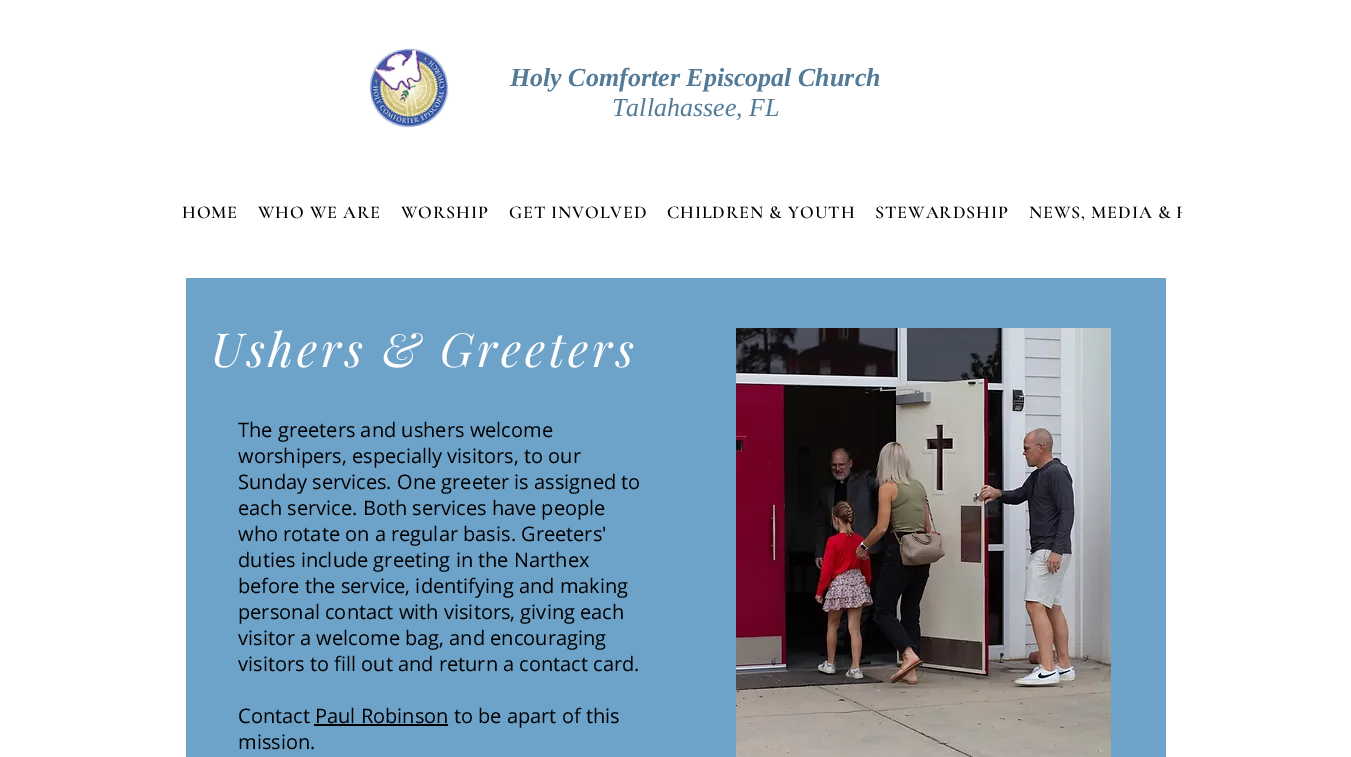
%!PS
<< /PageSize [1351 757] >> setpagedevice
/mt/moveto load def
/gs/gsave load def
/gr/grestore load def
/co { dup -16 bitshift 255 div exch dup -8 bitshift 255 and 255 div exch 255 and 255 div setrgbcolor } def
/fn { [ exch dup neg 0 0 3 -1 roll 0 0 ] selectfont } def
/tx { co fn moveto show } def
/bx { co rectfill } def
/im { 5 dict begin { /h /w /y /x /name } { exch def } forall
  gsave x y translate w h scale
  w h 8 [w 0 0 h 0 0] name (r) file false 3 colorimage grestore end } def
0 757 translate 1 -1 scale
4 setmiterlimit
0 0 1351 757 16#FFFFFF bx
(media/1.raw) 369 48 80 80 im
186 278 980 479 16#6EA3C9 bx
(media/2.raw) 736 328 375 429 im
314 724 134 2 16#000000 bx
(Holy Comforter Episcopal Church) 510 86 /LiberationSerif-BoldItalic 26 16#537B98 tx
(Tallahassee, FL) 612 116 /LiberationSerif-Italic 26 16#537B98 tx
/CormorantGaramond-SemiBold 18 fn
16#000000 co
182 218 mt .9 0 (HOME) ashow
258 218 mt .9 0 (WHO WE ARE) ashow
401 218 mt .9 0 (WORSHIP) ashow
509 218 mt .9 0 (GET INVOLVED) ashow
667 218 mt .9 0 (CHILDREN & YOUTH) ashow
875 218 mt .9 0 (STEWARDSHIP) ashow
gs
172 167 1010 89 rectclip
1029 218 mt .9 0 (NEWS, MEDIA & R) ashow
gr
/PlayfairDisplay-Italic 47 fn
16#FFFFFF co
211 367 mt 3.75 0 (Ushers & Greeters) ashow
(The greeters and ushers welcome) 238 437 /OpenSans-Regular 20 16#000000 tx
(worshipers, especially visitors, to our) 238 463 /OpenSans-Regular 20 16#000000 tx
(Sunday services. One greeter is assigned to) 238 489 /OpenSans-Regular 20 16#000000 tx
(each service. Both services have people) 238 515 /OpenSans-Regular 20 16#000000 tx
(who rotate on a regular basis. Greeters') 238 541 /OpenSans-Regular 20 16#000000 tx
(duties include greeting in the Narthex) 238 567 /OpenSans-Regular 20 16#000000 tx
(before the service, identifying and making) 238 593 /OpenSans-Regular 20 16#000000 tx
(personal contact with visitors, giving each) 238 619 /OpenSans-Regular 20 16#000000 tx
(visitor a welcome bag, and encouraging) 238 645 /OpenSans-Regular 20 16#000000 tx
(visitors to fill out and return a contact card.) 238 671 /OpenSans-Regular 20 16#000000 tx
(Contact Paul Robinson to be apart of this) 238 723 /OpenSans-Regular 20 16#000000 tx
(mission.) 238 749 /OpenSans-Regular 20 16#000000 tx
showpage
